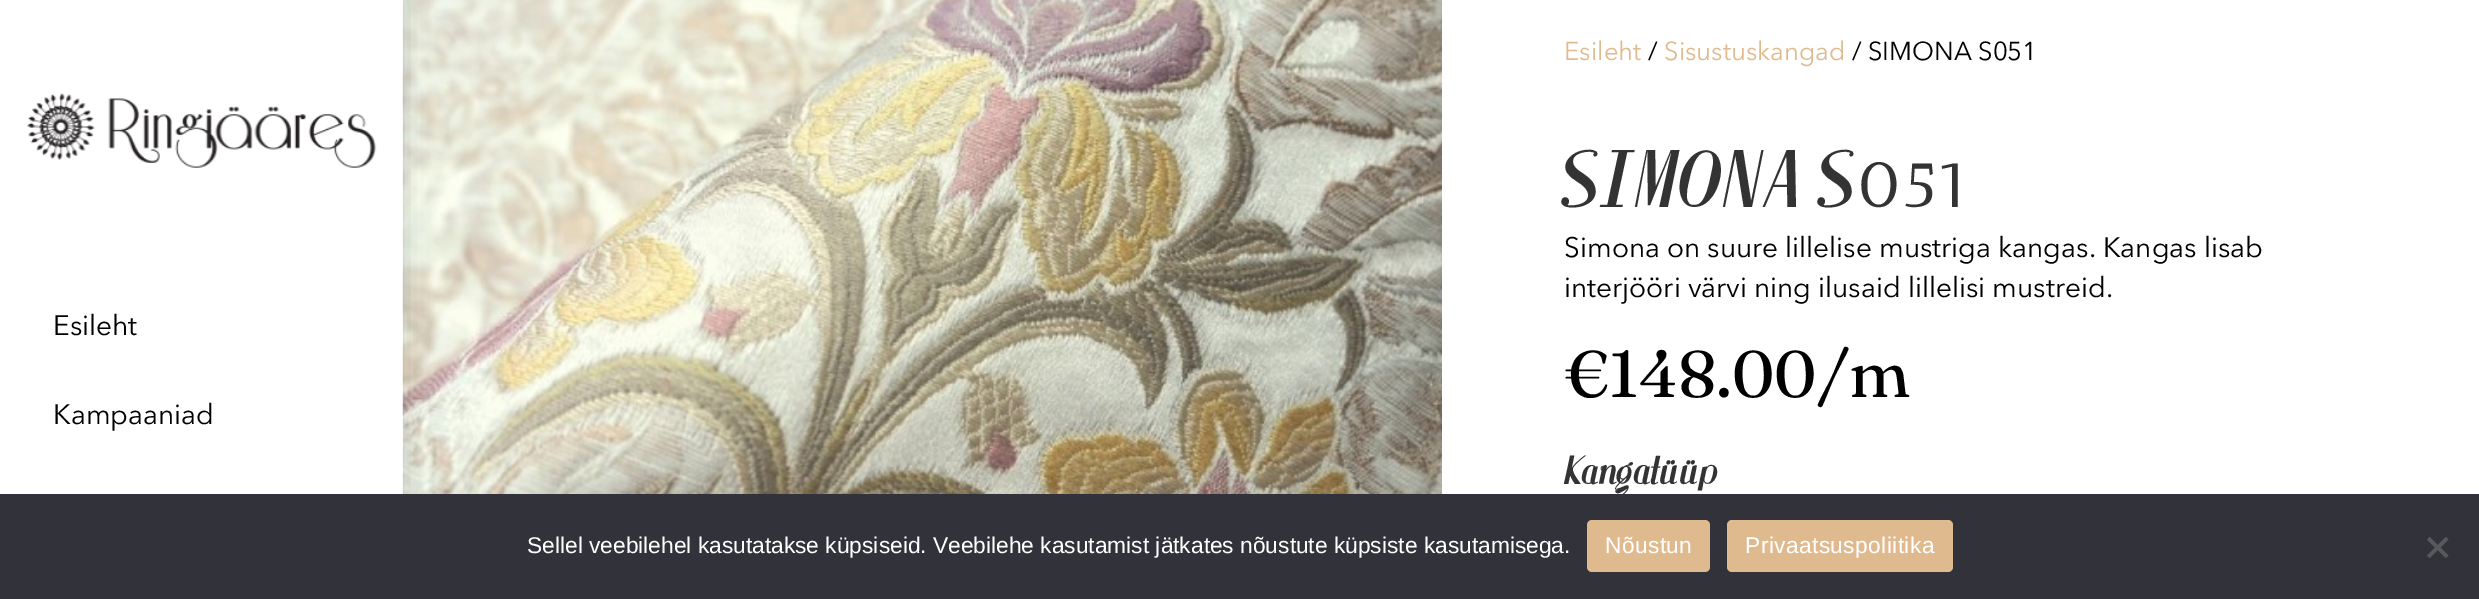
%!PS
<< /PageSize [2479 599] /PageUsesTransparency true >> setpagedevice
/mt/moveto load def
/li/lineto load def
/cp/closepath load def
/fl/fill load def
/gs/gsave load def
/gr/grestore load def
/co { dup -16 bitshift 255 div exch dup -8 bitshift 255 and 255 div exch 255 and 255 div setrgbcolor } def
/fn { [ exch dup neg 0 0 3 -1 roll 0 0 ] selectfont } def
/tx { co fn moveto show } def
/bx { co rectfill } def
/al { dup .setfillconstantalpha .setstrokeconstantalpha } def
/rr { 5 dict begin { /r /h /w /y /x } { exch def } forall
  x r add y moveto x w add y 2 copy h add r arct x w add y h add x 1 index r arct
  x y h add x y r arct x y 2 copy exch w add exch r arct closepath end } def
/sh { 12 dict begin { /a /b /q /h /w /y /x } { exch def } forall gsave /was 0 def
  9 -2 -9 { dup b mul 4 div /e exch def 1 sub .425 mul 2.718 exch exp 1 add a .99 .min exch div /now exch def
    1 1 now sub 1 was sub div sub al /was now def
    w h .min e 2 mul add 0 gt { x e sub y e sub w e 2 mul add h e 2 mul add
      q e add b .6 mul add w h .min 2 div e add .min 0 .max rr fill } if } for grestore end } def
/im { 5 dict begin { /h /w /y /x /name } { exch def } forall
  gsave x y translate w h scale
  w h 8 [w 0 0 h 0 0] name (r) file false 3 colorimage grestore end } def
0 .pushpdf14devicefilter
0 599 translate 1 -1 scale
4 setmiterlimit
0 0 2479 599 16#FFFFFF bx
(media/2.raw) 402 0 1040 494 im
gs
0 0 mt 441 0 li 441 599 li 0 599 li cp 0 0 mt 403 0 li 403 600 li 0 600 li cp eoclip newpath
16#000000 co
-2 0 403 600 0 13 .2 sh
gr
0.51 al
402 0 1 494 16#FFFFFF bx
1 al
(media/1.raw) 27 93 350 75 im
(Esileht) 53 335 /AvenirNext-Regular 28 16#000000 tx
(Kampaaniad) 53 424 /AvenirNext-Regular 28 16#000000 tx
(Esileht) 1564 60 /AvenirNext-Regular 25.75 16#E0BA8F tx
(/) 1648 60 /AvenirNext-Regular 25.75 16#000000 tx
(Sisustuskangad) 1664 60 /AvenirNext-Regular 25.75 16#E0BA8F tx
(/ SIMONA S051) 1852 60 /AvenirNext-Regular 25.75 16#000000 tx
/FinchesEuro-Bold 63 fn
16#333333 co
1564 207 mt 3.5 0 (SIMONA S051) ashow
(Simona on suure lillelise mustriga kangas. Kangas lisab) 1564 257 /AvenirNext-Regular 28 16#000000 tx
(interjööri värvi ning ilusaid lillelisi mustreid.) 1564 297 /AvenirNext-Regular 28 16#000000 tx
(€148.00/m) 1564 397 /Fraunces-Regular 65.5 16#000000 tx
/FinchesEuro-Bold 31.5 fn
16#333333 co
1564 484 mt 1.75 0 (Kangatüüp) ashow
0 494 2479 105 16#32323A bx
(Sellel veebilehel kasutatakse küpsiseid. Veebilehe kasutamist jätkates nõustute küpsiste kasutamisega.) 527 553 /LiberationSans-Regular 22.75 16#FFFFFF tx
16#E0BA8F co
1587 520 123 52 5 rr fl
16#FFFFFF co
1605 553 mt .4 0 (Nõustun) ashow
16#E0BA8F co
1727 520 226 52 5 rr fl
16#FFFFFF co
1745 553 mt .4 0 (Privaatsuspoliitika) ashow
16#59595D co
2446 537 mt 2448.5 539.5 li 2429.5 558 li 2427 555.5 li cp fl
2427 539.5 mt 2429.5 537 li 2448.5 555.5 li 2446 558 li cp fl
.poppdf14devicefilter showpage
